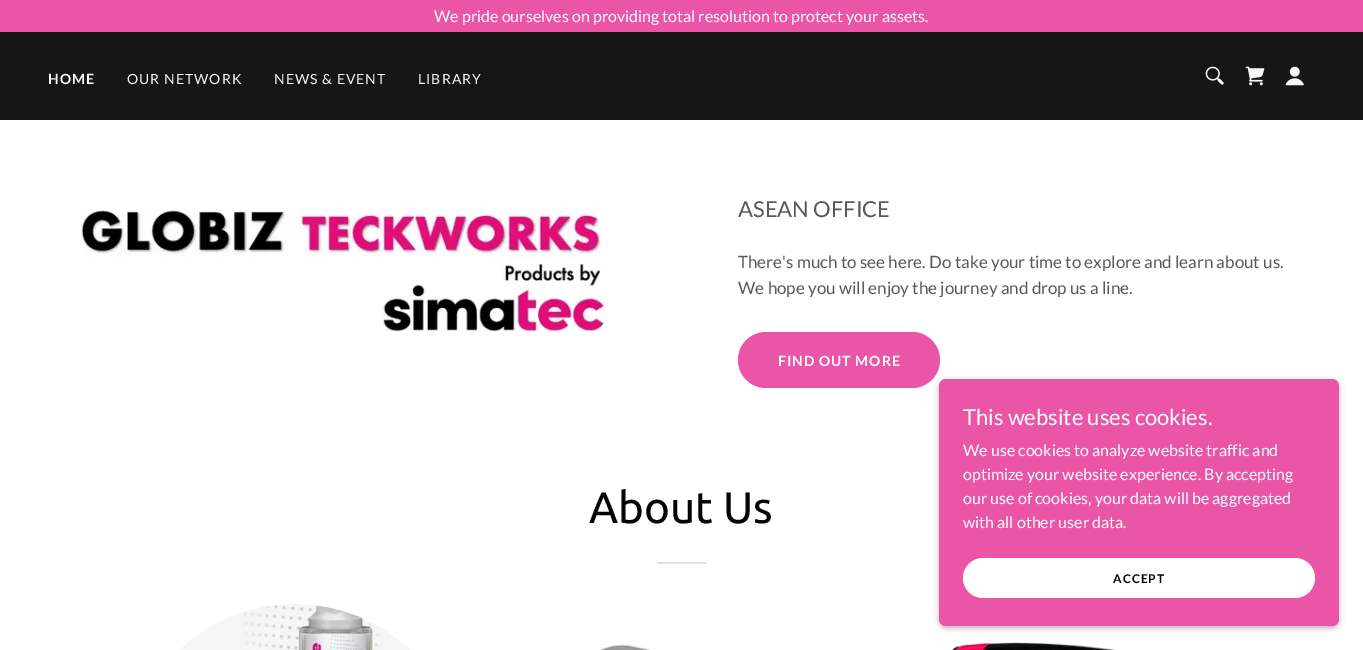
%!PS
<< /PageSize [1363 650] /PageUsesTransparency true >> setpagedevice
/mt/moveto load def
/fl/fill load def
/co { dup -16 bitshift 255 div exch dup -8 bitshift 255 and 255 div exch 255 and 255 div setrgbcolor } def
/fn { [ exch dup neg 0 0 3 -1 roll 0 0 ] selectfont } def
/tx { co fn moveto show } def
/bx { co rectfill } def
/al { dup .setfillconstantalpha .setstrokeconstantalpha } def
/rr { 5 dict begin { /r /h /w /y /x } { exch def } forall
  x r add y moveto x w add y 2 copy h add r arct x w add y h add x 1 index r arct
  x y h add x y r arct x y 2 copy exch w add exch r arct closepath end } def
/sh { 12 dict begin { /a /b /q /h /w /y /x } { exch def } forall gsave /was 0 def
  9 -2 -9 { dup b mul 4 div /e exch def 1 sub .425 mul 2.718 exch exp 1 add a .99 .min exch div /now exch def
    1 1 now sub 1 was sub div sub al /was now def
    w h .min e 2 mul add 0 gt { x e sub y e sub w e 2 mul add h e 2 mul add
      q e add b .6 mul add w h .min 2 div e add .min 0 .max rr fill } if } for grestore end } def
/im { 5 dict begin { /h /w /y /x /name } { exch def } forall
  gsave x y translate w h scale
  w h 8 [w 0 0 h 0 0] name (r) file false 3 colorimage grestore end } def
0 .pushpdf14devicefilter
0 650 translate 1 -1 scale
4 setmiterlimit
0 0 1363 650 16#FFFFFF bx
0 32 1363 88 16#161616 bx
0 0 1363 32 16#EB55A7 bx
(media/1.raw) 1205 66 19 19 im
(media/2.raw) 1245 66 20 20 im
(media/3.raw) 1285 66 19 20 im
(media/4.raw) 81 209 526 123 im
738 332 202 56 28 rr fl
657 562 50 2 16#E2E2E2 bx
(media/5.raw) 180 604 230 46 im
(media/6.raw) 600 644 51 6 im
(media/7.raw) 952 642 164 8 im
16#000000 co
939 381 400 247 7 3 .3 sh
16#EB55A7 co
939 379 400 247 7 rr fl
16#FFFFFF co
963 558 352 40 20 rr fl
(We pride ourselves on providing total resolution to protect your assets.) 434 22 /Lato-Regular 16 16#FFFFFF tx
/Lato-Bold 14 fn
16#F7F7F7 co
48 84 mt 1 0 (HOME) ashow
/Lato-Regular 14 fn
127 84 mt 1 0 (OUR NETWORK) ashow
274 84 mt 1 0 (NEWS & EVENT) ashow
418 84 mt 1 0 (LIBRARY) ashow
(ASEAN OFFICE) 738 217 /Lato-Regular 22 16#595959 tx
(There's much to see here. Do take your time to explore and learn about us.) 738 268 /Lato-Regular 17 16#595959 tx
(We hope you will enjoy the journey and drop us a line.) 738 294 /Lato-Regular 17 16#595959 tx
/Lato-Bold 14 fn
16#FFFFFF co
778 366 mt 1 0 (FIND OUT MORE) ashow
(About Us) 589 523 /Ubuntu-Regular 44 16#040404 tx
(This website uses cookies.) 963 425 /Lato-Regular 22 16#FFFFFF tx
(We use cookies to analyze website traffic and) 963 456 /Lato-Regular 16 16#FFFFFF tx
(optimize your website experience. By accepting) 963 480 /Lato-Regular 16 16#FFFFFF tx
(our use of cookies, your data will be aggregated) 963 504 /Lato-Regular 16 16#FFFFFF tx
(with all other user data.) 963 528 /Lato-Regular 16 16#FFFFFF tx
/Lato-Bold 12 fn
16#040404 co
1113 583 mt 1 0 (ACCEPT) ashow
.poppdf14devicefilter showpage
